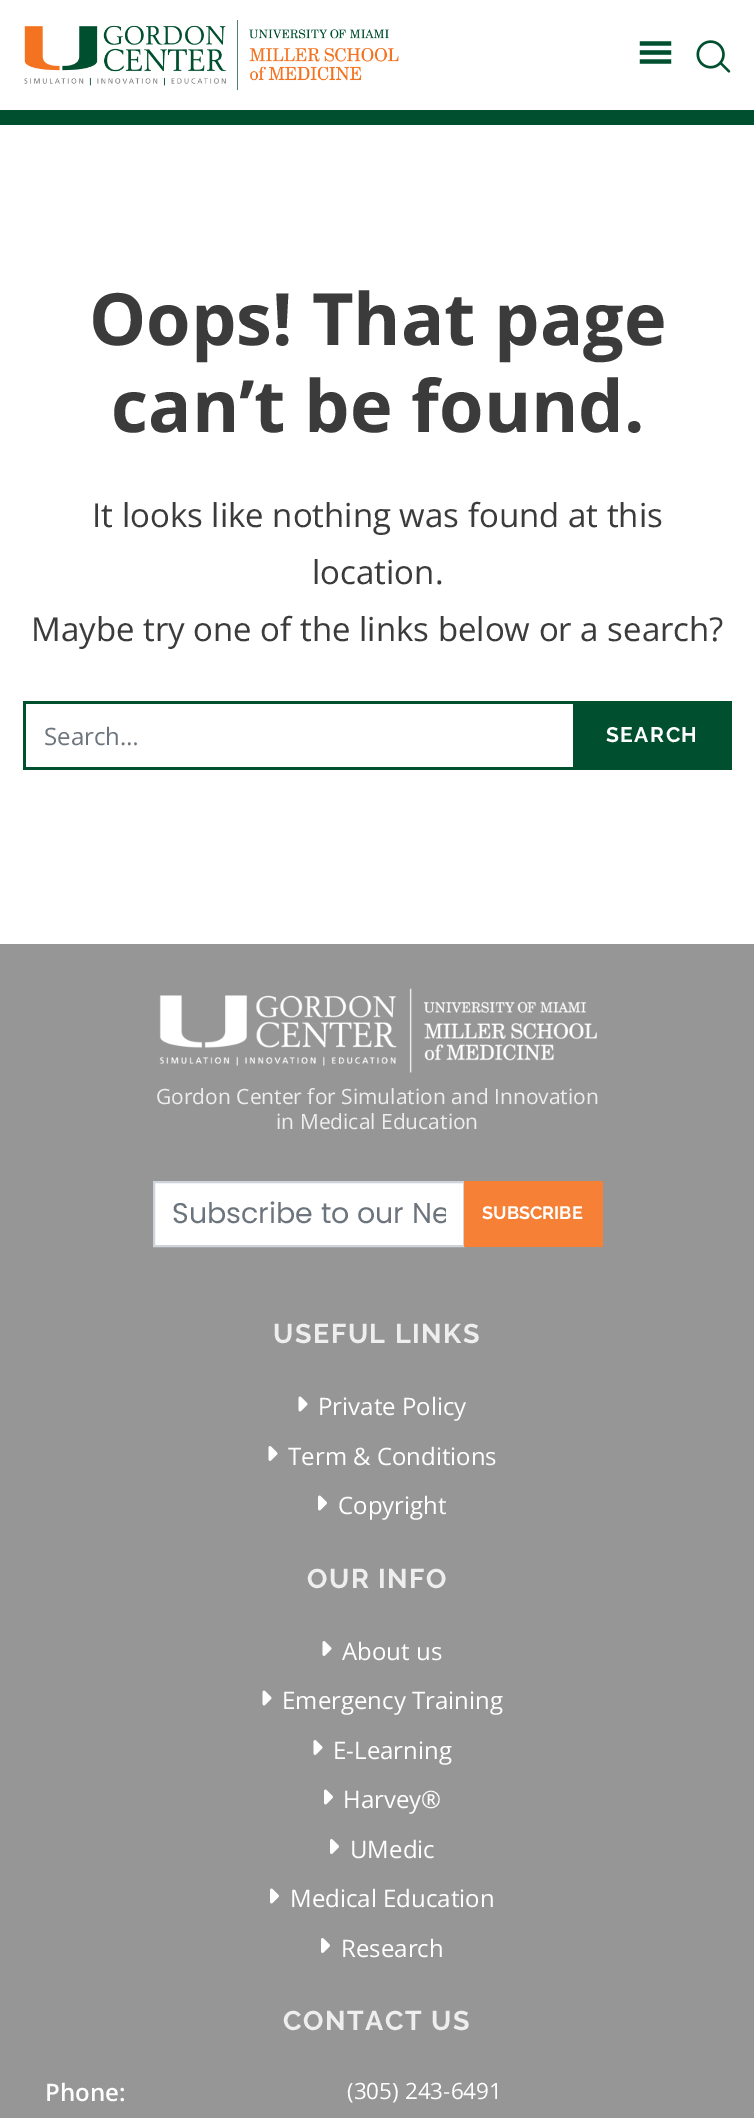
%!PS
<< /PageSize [754 2118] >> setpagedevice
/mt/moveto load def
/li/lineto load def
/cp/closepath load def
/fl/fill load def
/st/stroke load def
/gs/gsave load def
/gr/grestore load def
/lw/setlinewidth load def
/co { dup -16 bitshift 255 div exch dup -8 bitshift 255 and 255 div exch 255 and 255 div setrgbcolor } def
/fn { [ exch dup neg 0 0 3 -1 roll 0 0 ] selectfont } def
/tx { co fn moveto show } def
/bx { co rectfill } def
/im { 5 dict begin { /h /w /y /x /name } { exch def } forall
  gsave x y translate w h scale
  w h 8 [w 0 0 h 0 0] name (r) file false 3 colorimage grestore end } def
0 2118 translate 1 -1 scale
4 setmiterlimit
0 0 754 2118 16#FFFFFF bx
0 110 754 15 16#005030 bx
(media/1.raw) 24 20 375 70 im
(media/2.raw) 639 41 33 23 im
(media/3.raw) 696 40 35 33 im
23 701 552 3 16#005030 bx
23 767 552 3 16#005030 bx
23 701 3 69 16#005030 bx
573 701 159 69 16#005030 bx
0 944 754 1174 16#969696 bx
(media/4.raw) 159 988 438 85 im
16#FFFFFF co
154 1182 mt 464 1182 li 464 1246 li 154 1246 li cp gs fl gr
16#CED4DA co
2 lw
st
464 1181 139 66 16#F68136 bx
(media/5.raw) 298 1396 10 16 im
(media/6.raw) 268 1446 10 15 im
(media/7.raw) 318 1495 9 16 im
(media/6.raw) 322 1641 10 15 im
(media/5.raw) 262 1690 10 16 im
(media/6.raw) 313 1740 10 15 im
(media/7.raw) 324 1789 9 16 im
(media/8.raw) 330 1839 9 15 im
(media/7.raw) 270 1888 9 16 im
(media/8.raw) 321 1938 9 15 im
(Oops! That page) 89 345 /OpenSans-Bold 72 16#3B3B3B tx
(can’t be found.) 111 432 /OpenSans-Bold 72 16#3B3B3B tx
(It looks like nothing was found at this) 92 527 /OpenSans-Regular 33 16#3B3B3B tx
(location.) 312 584 /OpenSans-Regular 33 16#3B3B3B tx
(Maybe try one of the links below or a search?) 31 641 /OpenSans-Regular 33 16#3B3B3B tx
(Search…) 44 745 /OpenSans-Regular 24 16#6C757D tx
/Raleway-Bold 21 fn
16#FFFFFF co
606 742 mt 1.5 0 (SEARCH) ashow
(Gordon Center for Simulation and Innovation) 156 1104 /OpenSans-Regular 21 16#EEEEEE tx
(in Medical Education) 276 1129 /OpenSans-Regular 21 16#EEEEEE tx
gs
173 1191 273 44 rectclip
(Subscribe to our Ne) 172 1223 /Poppins-Regular 28.5 16#6C757D tx
gr
(SUBSCRIBE) 482 1219 /Raleway-Bold 18 16#FFFFFF tx
/Raleway-Bold 27 fn
16#EEEEEE co
273 1343 mt 1.5 0 (USEFUL LINKS) ashow
(Private Policy) 318 1415 /OpenSans-Regular 24 16#FFFFFF tx
(Term & Conditions) 288 1465 /OpenSans-Regular 24 16#FFFFFF tx
(Copyright) 338 1514 /OpenSans-Regular 24 16#FFFFFF tx
/Raleway-Bold 27 fn
16#EEEEEE co
307 1588 mt 1.5 0 (OUR INFO) ashow
(About us) 342 1660 /OpenSans-Regular 24 16#FFFFFF tx
(Emergency Training) 282 1709 /OpenSans-Regular 24 16#FFFFFF tx
(E-Learning) 333 1759 /OpenSans-Regular 24 16#FFFFFF tx
(Harvey®) 343 1808 /OpenSans-Regular 24 16#FFFFFF tx
(UMedic) 350 1858 /OpenSans-Regular 24 16#FFFFFF tx
(Medical Education) 290 1907 /OpenSans-Regular 24 16#FFFFFF tx
(Research) 341 1957 /OpenSans-Regular 24 16#FFFFFF tx
/Raleway-Bold 27 fn
16#EEEEEE co
283 2030 mt 1.5 0 (CONTACT US) ashow
(Phone:) 45 2101 /OpenSans-SemiBold 24 16#FFFFFF tx
(\(305\) 243-6491) 347 2099 /OpenSans-Regular 22.5 16#FFFFFF tx
showpage
